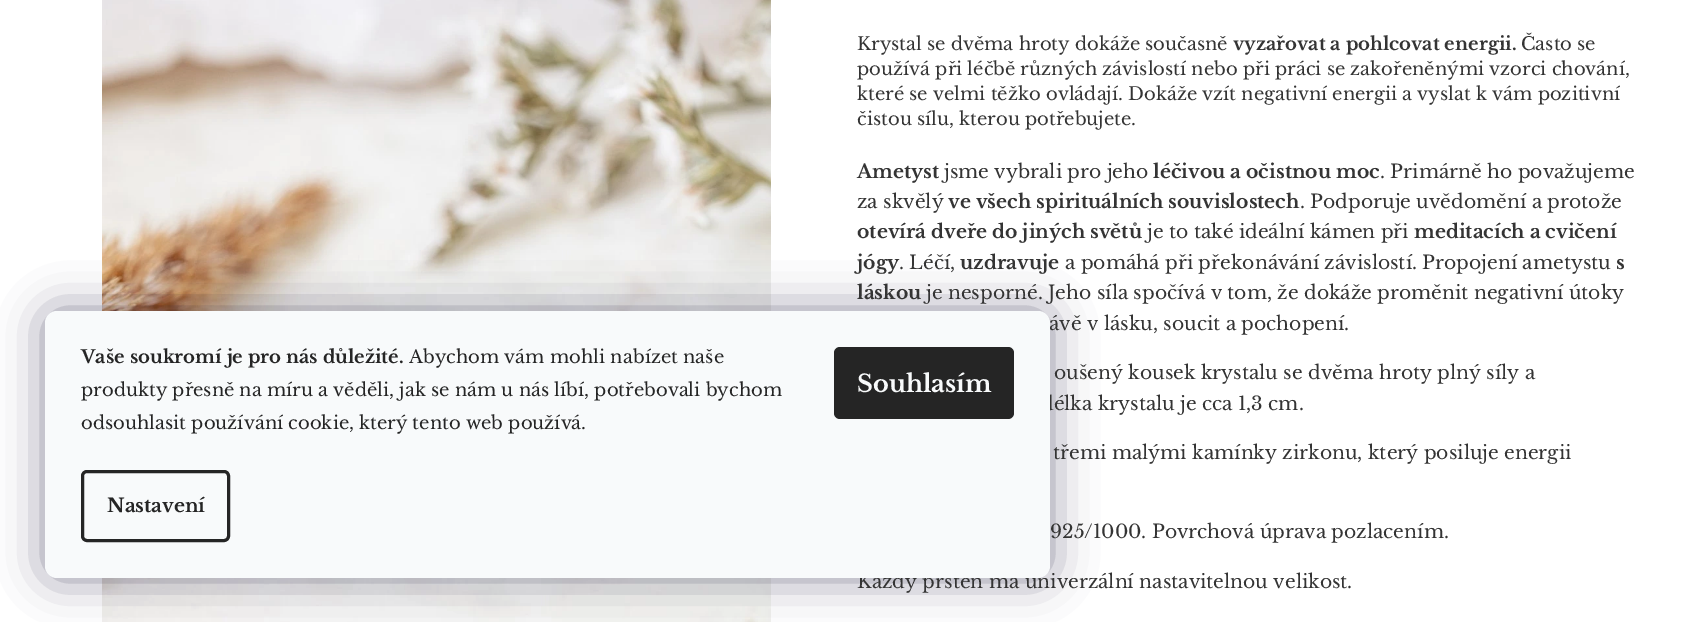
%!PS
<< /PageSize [1705 622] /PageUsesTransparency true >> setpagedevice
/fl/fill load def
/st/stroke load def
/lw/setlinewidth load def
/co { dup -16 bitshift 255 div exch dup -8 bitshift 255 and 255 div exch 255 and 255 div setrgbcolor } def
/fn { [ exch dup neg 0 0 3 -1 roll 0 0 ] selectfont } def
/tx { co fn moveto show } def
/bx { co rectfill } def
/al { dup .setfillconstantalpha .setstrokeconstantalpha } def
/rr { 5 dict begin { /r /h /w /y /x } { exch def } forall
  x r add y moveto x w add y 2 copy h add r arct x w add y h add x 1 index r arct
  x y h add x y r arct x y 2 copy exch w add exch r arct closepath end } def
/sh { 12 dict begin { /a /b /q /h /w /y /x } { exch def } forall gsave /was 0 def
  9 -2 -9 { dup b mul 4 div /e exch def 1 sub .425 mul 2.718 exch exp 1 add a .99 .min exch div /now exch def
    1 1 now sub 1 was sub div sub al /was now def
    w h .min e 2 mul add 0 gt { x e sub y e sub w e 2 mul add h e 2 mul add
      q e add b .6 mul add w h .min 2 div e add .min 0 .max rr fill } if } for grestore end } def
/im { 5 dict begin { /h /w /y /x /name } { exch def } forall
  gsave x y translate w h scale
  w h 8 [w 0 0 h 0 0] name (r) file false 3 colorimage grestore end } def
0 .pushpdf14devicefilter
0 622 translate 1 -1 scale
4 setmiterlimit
0 0 1705 622 16#FFFFFF bx
(media/1.raw) 102 0 669 622 im
16#1B1939 co
45 311 1005 267 12 22.5 .5 sh
(Krystal se dvěma hroty dokáže současně) 857 50 /LibreBaskerville-Regular 18 16#343434 tx
(vyzařovat a pohlcovat energii.) 1233 50 /LibreBaskerville-Bold 18 16#343434 tx
(Často se) 1521 50 /LibreBaskerville-Regular 18 16#343434 tx
(používá při léčbě různých závislostí nebo při práci se zakořeněnými vzorci chování,) 857 75 /LibreBaskerville-Regular 18 16#343434 tx
(které se velmi těžko ovládají. Dokáže vzít negativní energii a vyslat k vám pozitivní) 857 100 /LibreBaskerville-Regular 18 16#343434 tx
(čistou sílu, kterou potřebujete.) 857 125 /LibreBaskerville-Regular 18 16#343434 tx
(Ametyst) 857 178 /LibreBaskerville-Bold 18.75 16#343434 tx
(jsme vybrali pro jeho) 944 178 /LibreBaskerville-Regular 18.75 16#343434 tx
(léčivou a očistnou moc) 1153 178 /LibreBaskerville-Bold 18.75 16#343434 tx
(. Primárně ho považujeme) 1380 178 /LibreBaskerville-Regular 18.75 16#343434 tx
(za skvělý) 857 208 /LibreBaskerville-Regular 18.75 16#343434 tx
(ve všech spirituálních souvislostech) 948 208 /LibreBaskerville-Bold 18.75 16#343434 tx
(. Podporuje uvědomění a protože) 1300 208 /LibreBaskerville-Regular 18.75 16#343434 tx
(otevírá dveře do jiných světů) 857 238 /LibreBaskerville-Bold 18.75 16#343434 tx
(je to také ideální kámen při) 1147 238 /LibreBaskerville-Regular 18.75 16#343434 tx
(meditacích a cvičení) 1414 238 /LibreBaskerville-Bold 18.75 16#343434 tx
(jógy) 857 269 /LibreBaskerville-Bold 18.75 16#343434 tx
(. Léčí,) 899 269 /LibreBaskerville-Regular 18.75 16#343434 tx
(uzdravuje) 960 269 /LibreBaskerville-Bold 18.75 16#343434 tx
(a pomáhá při překonávání závislostí. Propojení ametystu) 1065 269 /LibreBaskerville-Regular 18.75 16#343434 tx
(s) 1616 269 /LibreBaskerville-Bold 18.75 16#343434 tx
(láskou) 857 299 /LibreBaskerville-Bold 18.75 16#343434 tx
(je nesporné. Jeho síla spočívá v tom, že dokáže proměnit negativní útoky) 926 299 /LibreBaskerville-Regular 18.75 16#343434 tx
(ávě v lásku, soucit a pochopení.) 1049 330 /LibreBaskerville-Regular 18.75 16#343434 tx
(oušený kousek krystalu se dvěma hroty plný síly a) 1054 379 /LibreBaskerville-Regular 18.75 16#343434 tx
(délka krystalu je cca 1,3 cm.) 1041 410 /LibreBaskerville-Regular 18.75 16#343434 tx
(třemi malými kamínky zirkonu, který posiluje energii) 1053 459 /LibreBaskerville-Regular 18.75 16#343434 tx
(925/1000. Povrchová úprava pozlacením.) 1050 538 /LibreBaskerville-Regular 18.75 16#343434 tx
(Každý prsten má univerzální nastavitelnou velikost.) 857 588 /LibreBaskerville-Regular 18.75 16#343434 tx
16#F8FAFB co
45 311 1005 267 12 rr fl
(odsouhlasit používání cookie, který tento web používá.) 81 429 /LibreBaskerville-Regular 18 16#252525 tx
(produkty přesně na míru a věděli, jak se nám u nás líbí, potřebovali bychom) 81 396 /LibreBaskerville-Regular 18 16#252525 tx
(Abychom vám mohli nabízet naše) 409 363 /LibreBaskerville-Regular 18 16#252525 tx
(Vaše soukromí je pro nás důležité.) 81 363 /LibreBaskerville-Bold 18 16#252525 tx
834 347 180 72 6 rr fl
(Souhlasím) 857 392 /LibreBaskerville-Bold 24 16#F8FAFB tx
16#252525 co
3 lw
82.5 471.5 146 69 4.5 rr st
(Nastavení) 107 512 /LibreBaskerville-Bold 18.75 16#252525 tx
.poppdf14devicefilter showpage
